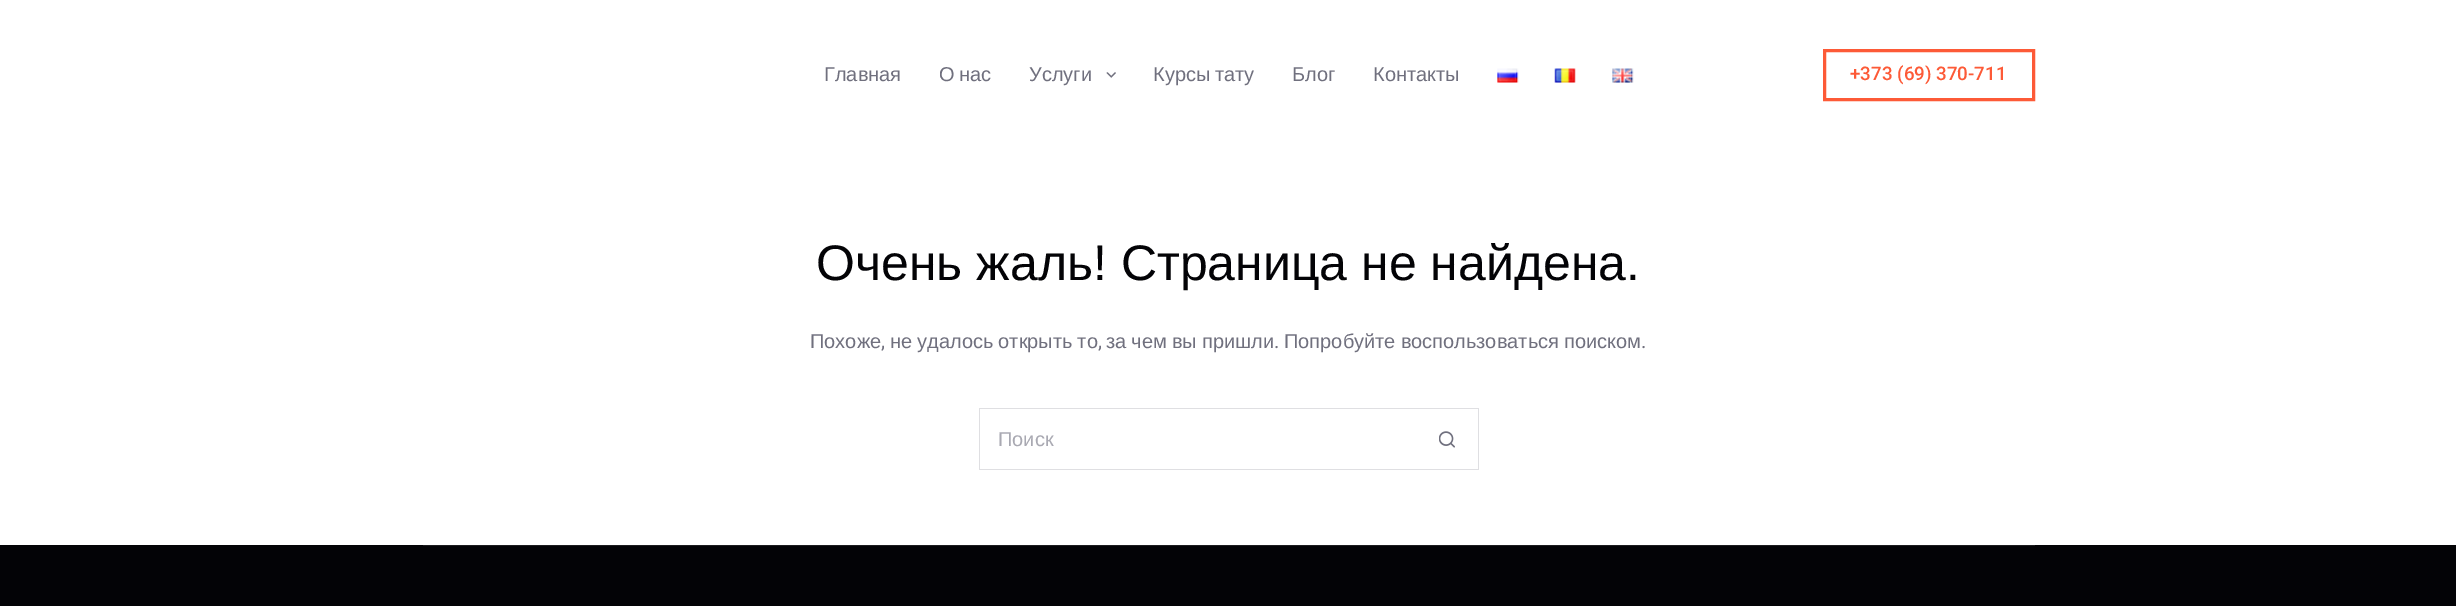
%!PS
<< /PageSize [2456 606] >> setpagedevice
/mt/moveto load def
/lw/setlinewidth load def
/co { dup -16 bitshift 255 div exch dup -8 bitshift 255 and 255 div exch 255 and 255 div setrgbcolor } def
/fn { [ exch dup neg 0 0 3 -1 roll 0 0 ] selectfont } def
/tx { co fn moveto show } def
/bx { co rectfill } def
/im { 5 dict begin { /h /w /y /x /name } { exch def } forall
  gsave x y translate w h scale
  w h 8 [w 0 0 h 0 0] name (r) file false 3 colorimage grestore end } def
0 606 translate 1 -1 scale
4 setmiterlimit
0 0 2456 606 16#FFFFFF bx
(media/1.raw) 1106 72 10 6 im
(media/2.raw) 1497 68 22 15 im
(media/3.raw) 1554 68 22 15 im
(media/4.raw) 1612 68 22 15 im
16#FD5A37 co
3 lw
1824.5 50.5 209 49 rectstroke
979 408 500 1 16#DFDFE2 bx
979 469 437 1 16#DFDFE2 bx
979 408 1 62 16#DFDFE2 bx
1478 408 1 62 16#DFDFE2 bx
1416 469 63 1 16#DFDFE2 bx
(media/5.raw) 1439 431 16 17 im
0 545 2456 61 16#030306 bx
423 545 1612 1 16#1C1C1F bx
(Главная) 824 81 /LiberationSans-Regular 20 16#70707E tx
939 81 mt -1 0 32 (О нас) widthshow
(Услуги) 1029 81 /LiberationSans-Regular 20 16#70707E tx
1153 81 mt -1 0 32 (Курсы тату) widthshow
(Блог) 1292 81 /LiberationSans-Regular 20 16#70707E tx
(Контакты) 1373 81 /LiberationSans-Regular 20 16#70707E tx
(+373 \(69\) 370-711) 1850 80 /Roboto-Medium 18.75 16#FD5A37 tx
(Очень жаль! Страница не найдена.) 816 280 /LiberationSans-Regular 50 16#030306 tx
(Похоже) 810 348 /LiberationSans-Regular 20 16#70707E tx
(,) 881 348 /Roboto-Regular 20 16#70707E tx
/LiberationSans-Regular 20 fn
890 348 mt -.5 0 32 (не удалось открыть то) widthshow
(,) 1098 348 /Roboto-Regular 20 16#70707E tx
/LiberationSans-Regular 20 fn
1106 348 mt -.5 0 32 (за чем вы пришли) widthshow
(.) 1274 348 /Roboto-Regular 20 16#70707E tx
/LiberationSans-Regular 20 fn
1284 348 mt -.5 0 32 (Попробуйте воспользоваться поиском) widthshow
(.) 1641 348 /Roboto-Regular 20 16#70707E tx
(Поиск) 998 446 /LiberationSans-Regular 20 16#A9A9B2 tx
showpage
